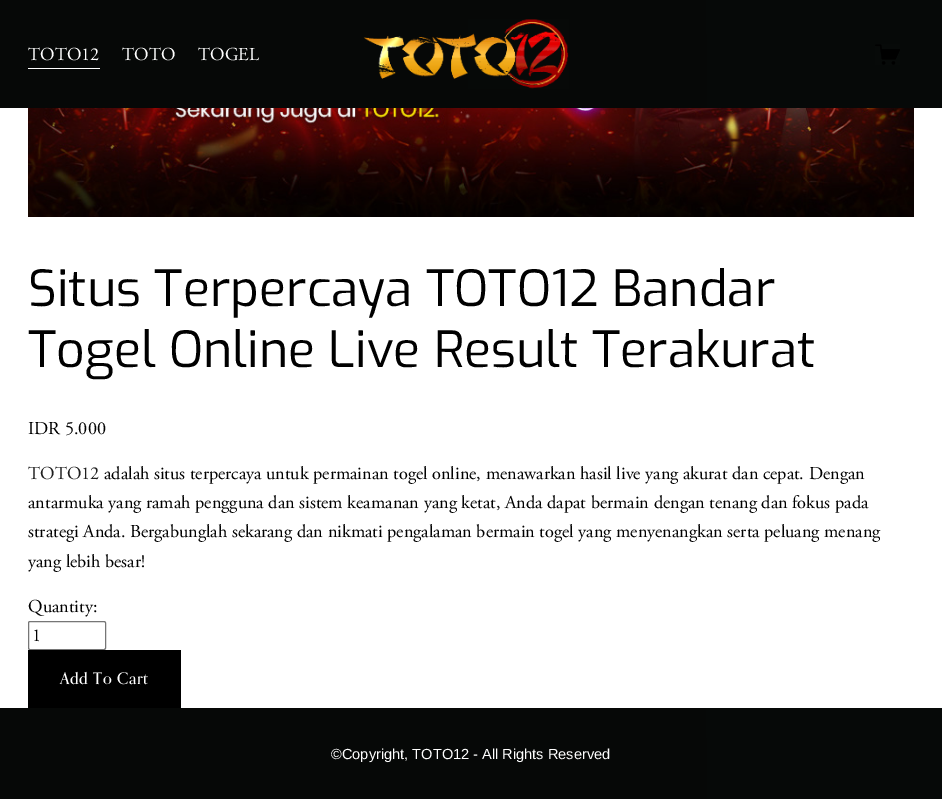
%!PS
<< /PageSize [942 799] >> setpagedevice
/mt/moveto load def
/li/lineto load def
/cp/closepath load def
/st/stroke load def
/gs/gsave load def
/gr/grestore load def
/co { dup -16 bitshift 255 div exch dup -8 bitshift 255 and 255 div exch 255 and 255 div setrgbcolor } def
/fn { [ exch dup neg 0 0 3 -1 roll 0 0 ] selectfont } def
/tx { co fn moveto show } def
/bx { co rectfill } def
/rr { 5 dict begin { /r /h /w /y /x } { exch def } forall
  x r add y moveto x w add y 2 copy h add r arct x w add y h add x 1 index r arct
  x y h add x y r arct x y 2 copy exch w add exch r arct closepath end } def
/im { 5 dict begin { /h /w /y /x /name } { exch def } forall
  gsave x y translate w h scale
  w h 8 [w 0 0 h 0 0] name (r) file false 3 colorimage grestore end } def
0 799 translate 1 -1 scale
4 setmiterlimit
0 0 942 799 16#FFFFFF bx
gs 0 0 mt 942 0 li 942 108 li 0 108 li cp clip newpath
<< /ShadingType 2 /ColorSpace /DeviceRGB /Coords [-.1 55 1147 52] /Extend [true true] /Function << /FunctionType 3 /Domain [0 1] /Functions [<< /FunctionType 2 /Domain [0 1] /C0 [.024 .031 .027] /C1 [.024 .031 .027] /N 1 >> << /FunctionType 2 /Domain [0 1] /C0 [.024 .031 .027] /C1 [.031 .043 .039] /N 1 >>] /Bounds [.29] /Encode [0 1 0 1] >> >> shfill gr
28 68 72 1 16#FFFFFF bx
(media/1.raw) 363 19 206 70 im
(media/2.raw) 875 44 25 21 im
(media/3.raw) 28 108 886 109 im
16#767676 co
28.5 621.5 77 28 1.5 rr st
28 650 153 58 16#000000 bx
gs 0 708 mt 942 708 li 942 799 li 0 799 li cp clip newpath
<< /ShadingType 2 /ColorSpace /DeviceRGB /Coords [-.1 755 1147 752] /Extend [true true] /Function << /FunctionType 3 /Domain [0 1] /Functions [<< /FunctionType 2 /Domain [0 1] /C0 [.024 .031 .027] /C1 [.024 .031 .027] /N 1 >> << /FunctionType 2 /Domain [0 1] /C0 [.024 .031 .027] /C1 [.031 .043 .039] /N 1 >>] /Bounds [.29] /Encode [0 1 0 1] >> >> shfill gr
(TOTO12) 28 60 /AdobeGaramond-Regular 18.25 16#FFFFFF tx
(TOTO) 122 60 /AdobeGaramond-Regular 18.25 16#FFFFFF tx
(TOGEL) 198 60 /AdobeGaramond-Regular 18.25 16#FFFFFF tx
(Situs Terpercaya TOTO12 Bandar) 28 306 /Exo-Regular 49.9 16#000000 tx
(Togel Online Live Result Terakurat) 28 367 /Exo-Regular 49.9 16#000000 tx
(IDR 5.000) 28 434 /AdobeGaramond-Regular 18.25 16#000000 tx
(TOTO12) 28 479 /AdobeGaramond-Regular 18.25 16#1F1F1F tx
(adalah situs terpercaya untuk permainan togel online, menawarkan hasil live yang akurat dan cepat. Dengan) 104 479 /AdobeGaramond-Regular 18.25 16#000000 tx
(antarmuka yang ramah pengguna dan sistem keamanan yang ketat, Anda dapat bermain dengan tenang dan fokus pada) 28 508 /AdobeGaramond-Regular 18.25 16#000000 tx
(strategi Anda. Bergabunglah sekarang dan nikmati pengalaman bermain togel yang menyenangkan serta peluang menang) 28 537 /AdobeGaramond-Regular 18.25 16#000000 tx
(yang lebih besar!) 28 567 /AdobeGaramond-Regular 18.25 16#000000 tx
(Quantity:) 28 612 /AdobeGaramond-Regular 18.25 16#000000 tx
(1) 32 641 /AdobeGaramond-Regular 18.25 16#000000 tx
/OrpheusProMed-Medium 16 fn
16#FFFFFF co
60 684 mt .6 0 (Add To Cart) ashow
(©Copyright, TOTO12 - All Rights Reserved) 331 759 /LiberationSans-Regular 14.6 16#FFFFFF tx
showpage
